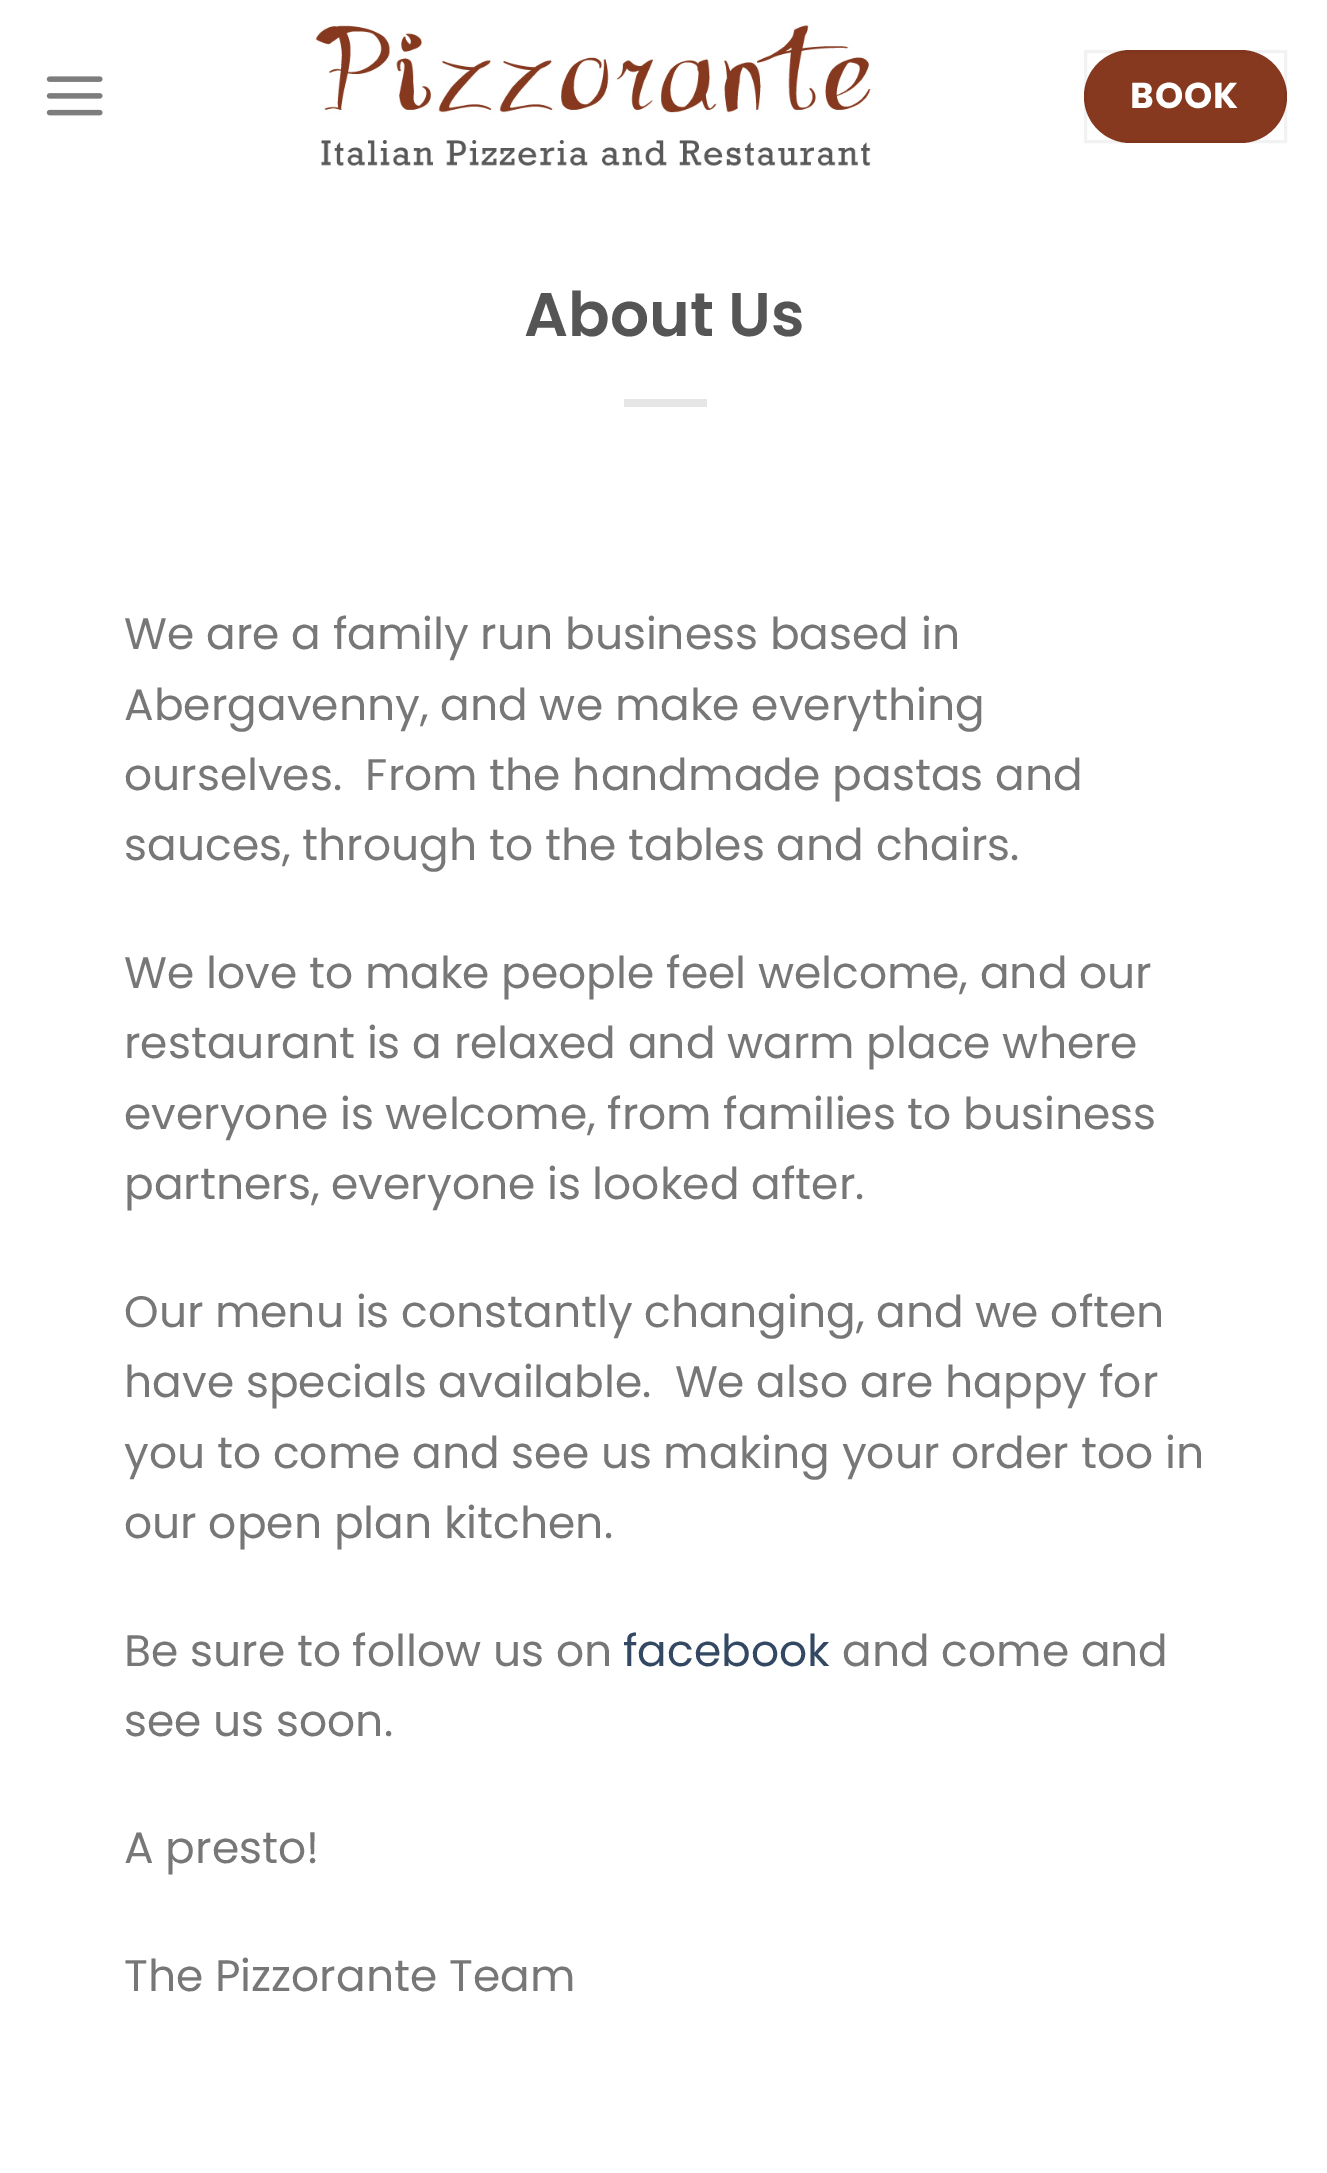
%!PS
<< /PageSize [1327 2173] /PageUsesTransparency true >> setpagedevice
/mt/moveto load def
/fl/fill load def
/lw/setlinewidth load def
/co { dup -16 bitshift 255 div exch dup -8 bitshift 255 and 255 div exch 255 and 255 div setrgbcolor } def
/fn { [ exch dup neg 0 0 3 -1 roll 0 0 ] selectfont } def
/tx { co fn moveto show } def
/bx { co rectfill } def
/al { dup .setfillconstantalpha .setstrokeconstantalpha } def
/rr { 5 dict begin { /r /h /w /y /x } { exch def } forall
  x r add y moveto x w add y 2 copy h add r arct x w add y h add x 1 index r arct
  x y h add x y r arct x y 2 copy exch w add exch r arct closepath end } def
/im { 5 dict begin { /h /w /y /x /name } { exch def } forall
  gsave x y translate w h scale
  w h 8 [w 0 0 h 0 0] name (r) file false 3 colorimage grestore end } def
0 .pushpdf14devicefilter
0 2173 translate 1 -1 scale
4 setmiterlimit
0 0 1327 2173 16#FFFFFF bx
(media/1.raw) 46 76 57 40 im
(media/2.raw) 315 25 556 141 im
16#86391F co
1084 50 203 93 46.5 rr fl
0.05 al
16#000000 co
3 lw
1085.5 51.5 200 90 rectstroke
1 al
624 399 83 8 16#E6E6E6 bx
/Poppins-Bold 36 fn
16#FFFFFF co
1130 108 mt 1 0 (BOOK) ashow
(About Us) 524 336 /Poppins-SemiBold 61.5 16#555555 tx
(We are a family run business based in) 124 649 /Poppins-Regular 44 16#777777 tx
(Abergavenny, and we make everything) 124 720 /Poppins-Regular 44 16#777777 tx
(ourselves.  From the handmade pastas and) 124 790 /Poppins-Regular 44 16#777777 tx
(sauces, through to the tables and chairs.) 124 860 /Poppins-Regular 44 16#777777 tx
(We love to make people feel welcome, and our) 124 988 /Poppins-Regular 44 16#777777 tx
(restaurant is a relaxed and warm place where) 124 1058 /Poppins-Regular 44 16#777777 tx
(everyone is welcome, from families to business) 124 1129 /Poppins-Regular 44 16#777777 tx
(partners, everyone is looked after.) 124 1199 /Poppins-Regular 44 16#777777 tx
(Our menu is constantly changing, and we often) 124 1327 /Poppins-Regular 44 16#777777 tx
(have specials available.  We also are happy for) 124 1397 /Poppins-Regular 44 16#777777 tx
(you to come and see us making your order too in) 124 1468 /Poppins-Regular 44 16#777777 tx
(our open plan kitchen.) 124 1538 /Poppins-Regular 44 16#777777 tx
(Be sure to follow us on) 124 1666 /Poppins-Regular 44 16#777777 tx
(facebook) 623 1666 /Poppins-Regular 44 16#334862 tx
(and come and) 842 1666 /Poppins-Regular 44 16#777777 tx
(see us soon.) 124 1736 /Poppins-Regular 44 16#777777 tx
(A presto!) 124 1863 /Poppins-Regular 44 16#777777 tx
(The Pizzorante Team) 124 1991 /Poppins-Regular 44 16#777777 tx
.poppdf14devicefilter showpage
